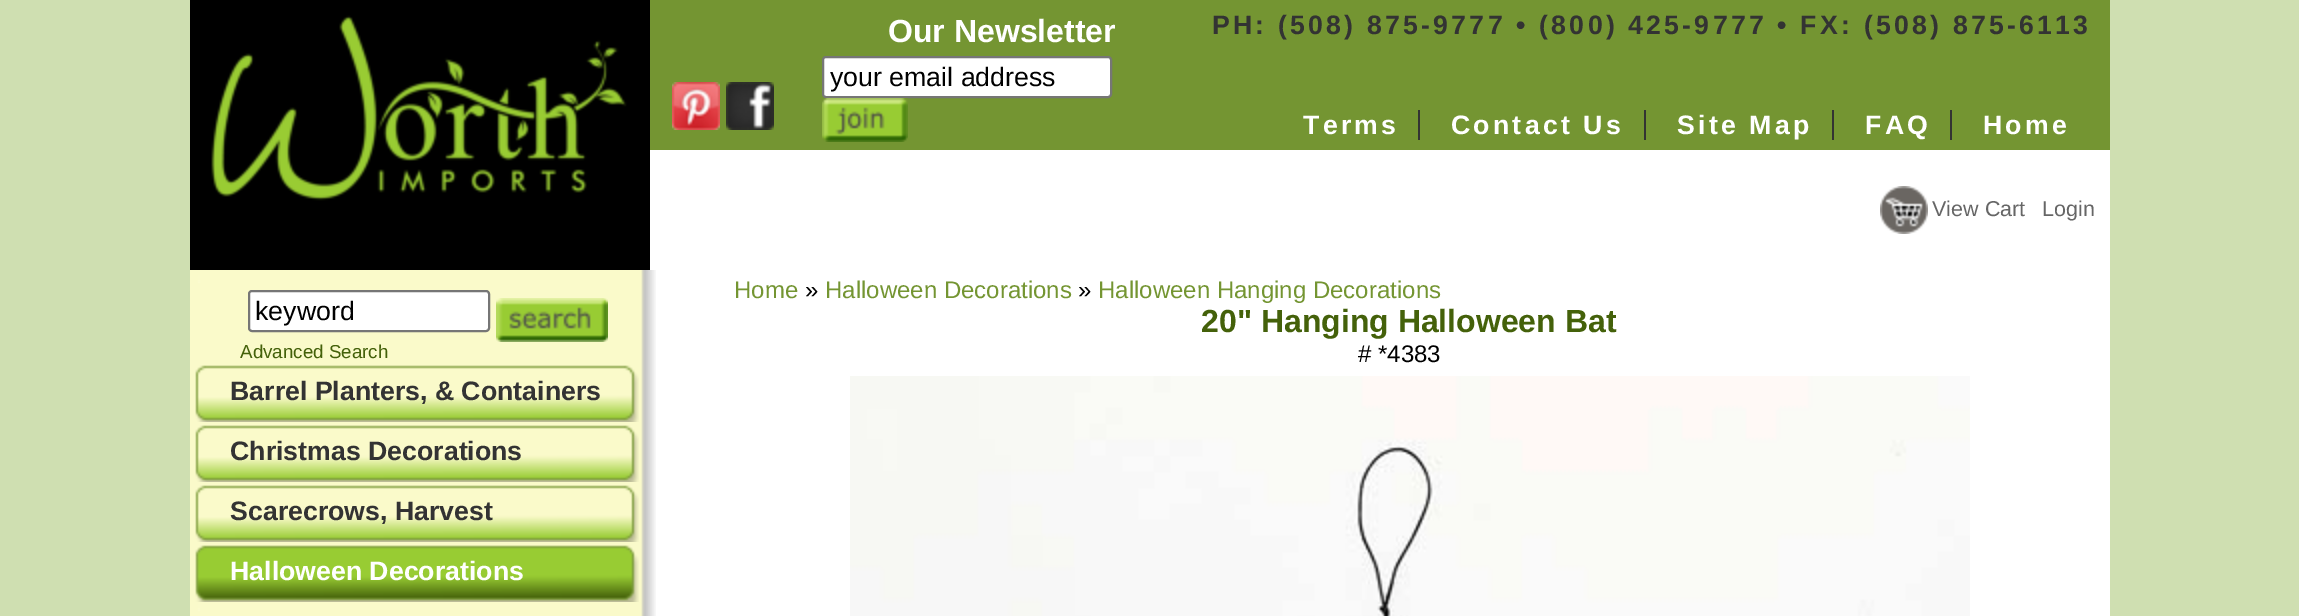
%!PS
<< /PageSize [2299 616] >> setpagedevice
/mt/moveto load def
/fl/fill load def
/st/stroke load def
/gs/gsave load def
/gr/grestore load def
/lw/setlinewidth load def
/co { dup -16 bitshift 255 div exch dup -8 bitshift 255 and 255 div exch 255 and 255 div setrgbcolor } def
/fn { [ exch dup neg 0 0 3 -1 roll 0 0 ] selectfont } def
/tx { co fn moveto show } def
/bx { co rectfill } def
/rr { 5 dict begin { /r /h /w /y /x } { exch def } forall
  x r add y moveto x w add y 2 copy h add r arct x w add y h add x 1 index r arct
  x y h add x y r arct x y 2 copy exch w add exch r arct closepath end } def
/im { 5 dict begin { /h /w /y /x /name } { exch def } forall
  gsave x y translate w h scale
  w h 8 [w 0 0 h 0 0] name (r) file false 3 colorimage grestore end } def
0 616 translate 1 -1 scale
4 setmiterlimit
0 0 2299 616 16#CFDFB1 bx
190 0 460 270 16#000000 bx
(media/1.raw) 211 15 416 186 im
650 0 542 150 16#749532 bx
16#FFFFFF co
823 57 288 40 3 rr gs fl gr
16#767676 co
2 lw
st
(media/2.raw) 822 98 86 44 im
(media/3.raw) 672 82 48 48 im
(media/4.raw) 726 82 48 48 im
1192 0 918 150 16#749532 bx
1418 110 2 30 16#333333 bx
1644 110 2 30 16#333333 bx
1832 110 2 30 16#333333 bx
1950 110 2 30 16#333333 bx
650 150 1460 120 16#FFFFFF bx
(media/5.raw) 1880 186 48 48 im
197 270 1913 346 16#FFFFFF bx
(media/6.raw) 190 270 466 346 im
249 291 240 40 3 rr gs fl gr
16#767676 co
st
(media/7.raw) 496 298 112 44 im
(media/8.raw) 195 365 444 57 im
(media/8.raw) 195 425 444 57 im
(media/8.raw) 195 485 444 57 im
(media/9.raw) 195 545 444 57 im
(media/10.raw) 850 376 1120 240 im
(Our Newsletter) 888 42 /LiberationSans-Bold 32 16#FFFFFF tx
(your email address) 830 86 /LiberationSans-Regular 26.7 16#000000 tx
/LiberationSans-Bold 26.7 fn
16#333333 co
1212 34 mt 3.2 0 (PH: \(508\) 875-9777 • \(800\) 425-9777 • FX: \(508\) 875-6113) ashow
16#FFFFFF co
1303 134 mt 3.2 0 (Terms) ashow
1451 134 mt 3.2 0 (Contact Us) ashow
1677 134 mt 3.2 0 (Site Map) ashow
1865 134 mt 3.2 0 (FAQ) ashow
1983 134 mt 3.2 0 (Home) ashow
(View Cart) 1932 216 /LiberationSans-Regular 21.5 16#666666 tx
(Login) 2042 216 /LiberationSans-Regular 21.5 16#666666 tx
(keyword) 255 320 /LiberationSans-Regular 26.7 16#000000 tx
(Advanced Search) 240 358 /LiberationSans-Regular 18.75 16#44610A tx
(Barrel Planters, & Containers) 230 400 /LiberationSans-Bold 26.7 16#333333 tx
(Christmas Decorations) 230 460 /LiberationSans-Bold 26.7 16#333333 tx
(Scarecrows, Harvest) 230 520 /LiberationSans-Bold 26.7 16#333333 tx
(Halloween Decorations) 230 580 /LiberationSans-Bold 26.7 16#FFFFFF tx
(Home) 734 298 /LiberationSans-Regular 24 16#749532 tx
(») 805 298 /LiberationSans-Regular 24 16#000000 tx
(Halloween Decorations) 825 298 /LiberationSans-Regular 24 16#749532 tx
(») 1078 298 /LiberationSans-Regular 24 16#000000 tx
(Halloween Hanging Decorations) 1098 298 /LiberationSans-Regular 24 16#749532 tx
(20" Hanging Halloween Bat) 1201 332 /LiberationSans-Bold 32 16#44610A tx
(# *4383) 1358 362 /LiberationSans-Regular 24 16#000000 tx
showpage
